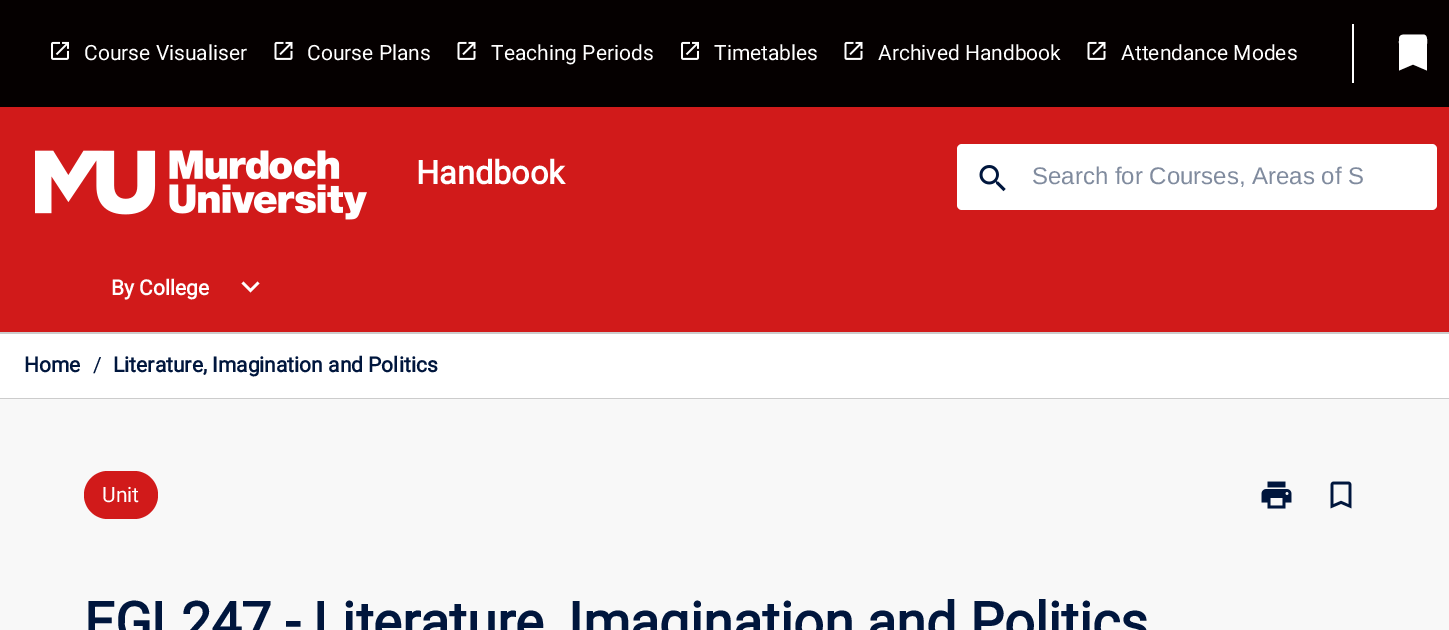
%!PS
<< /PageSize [1449 630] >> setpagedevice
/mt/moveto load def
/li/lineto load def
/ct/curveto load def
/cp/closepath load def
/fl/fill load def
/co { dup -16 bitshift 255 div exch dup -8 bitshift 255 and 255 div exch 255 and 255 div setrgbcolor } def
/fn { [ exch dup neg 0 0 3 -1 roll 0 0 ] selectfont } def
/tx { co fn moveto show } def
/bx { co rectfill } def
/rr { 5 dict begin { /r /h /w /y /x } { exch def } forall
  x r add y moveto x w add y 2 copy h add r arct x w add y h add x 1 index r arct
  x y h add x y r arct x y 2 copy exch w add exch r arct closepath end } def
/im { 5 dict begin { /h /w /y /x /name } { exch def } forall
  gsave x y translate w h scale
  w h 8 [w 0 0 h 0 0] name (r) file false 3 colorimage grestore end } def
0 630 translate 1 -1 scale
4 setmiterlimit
0 0 1449 630 16#FFFFFF bx
0 0 1449 107 16#050000 bx
1352 24 2 59 16#FFFFFF bx
(media/1.raw) 51 41 18 19 im
(media/2.raw) 274 41 19 19 im
(media/2.raw) 457 41 19 19 im
(media/1.raw) 681 41 18 19 im
(media/2.raw) 844 41 19 19 im
(media/2.raw) 1087 41 19 19 im
1423 34.5 mt 1428 34.5 1427 41 1427 44 ct 1427 70.5 li 1413 64.5 li 1399 70.5 li 1399 44 li 1399 36 1398.5 34.5 1406.5 34.5 ct cp fl
0 107 1449 225 16#D11A1A bx
(media/3.raw) 35 150 332 70 im
16#FFFFFF co
957 144 480 66 5 rr fl
(media/4.raw) 979 165 27 27 im
257.5 281.5 mt 259.5 283.5 li 250.5 292.5 li 241.5 283.5 li 243.5 281.5 li 250.5 288.5 li cp fl
0 332 1449 2 16#CCCCCC bx
0 398 1449 1 16#CCCCCC bx
0 399 1449 231 16#F8F8F8 bx
16#D11A1A co
84 471 74 48 24 rr fl
(media/5.raw) 1261 481 31 28 im
(media/6.raw) 1330 481 22 28 im
(Course Visualiser) 84 60 /Roboto-Regular 21 16#FFFFFF tx
(Course Plans) 307 60 /Roboto-Regular 21 16#FFFFFF tx
(Teaching Periods) 491 60 /Roboto-Regular 21 16#FFFFFF tx
(Timetables) 714 60 /Roboto-Regular 21 16#FFFFFF tx
(Archived Handbook) 878 60 /Roboto-Regular 21 16#FFFFFF tx
(Attendance Modes) 1121 60 /Roboto-Regular 21 16#FFFFFF tx
(Handbook) 416 184 /Roboto-Bold 32.5 16#FFFFFF tx
(Search for Courses, Areas of S) 1032 184 /LiberationSans-Regular 24 16#808B9E tx
(By College) 111 295 /Roboto-Bold 21 16#FFFFFF tx
(Home) 24 372 /Roboto-Bold 21 16#00163D tx
(/) 93 372 /Roboto-Regular 21 16#00163D tx
(Literature, Imagination and Politics) 113 372 /Roboto-Bold 21 16#00163D tx
(Unit) 102 502 /Roboto-Regular 21 16#FFFFFF tx
(EGL247 - Literature, Imagination and Politics) 84 641 /Roboto-Bold 54 16#00163D tx
showpage
